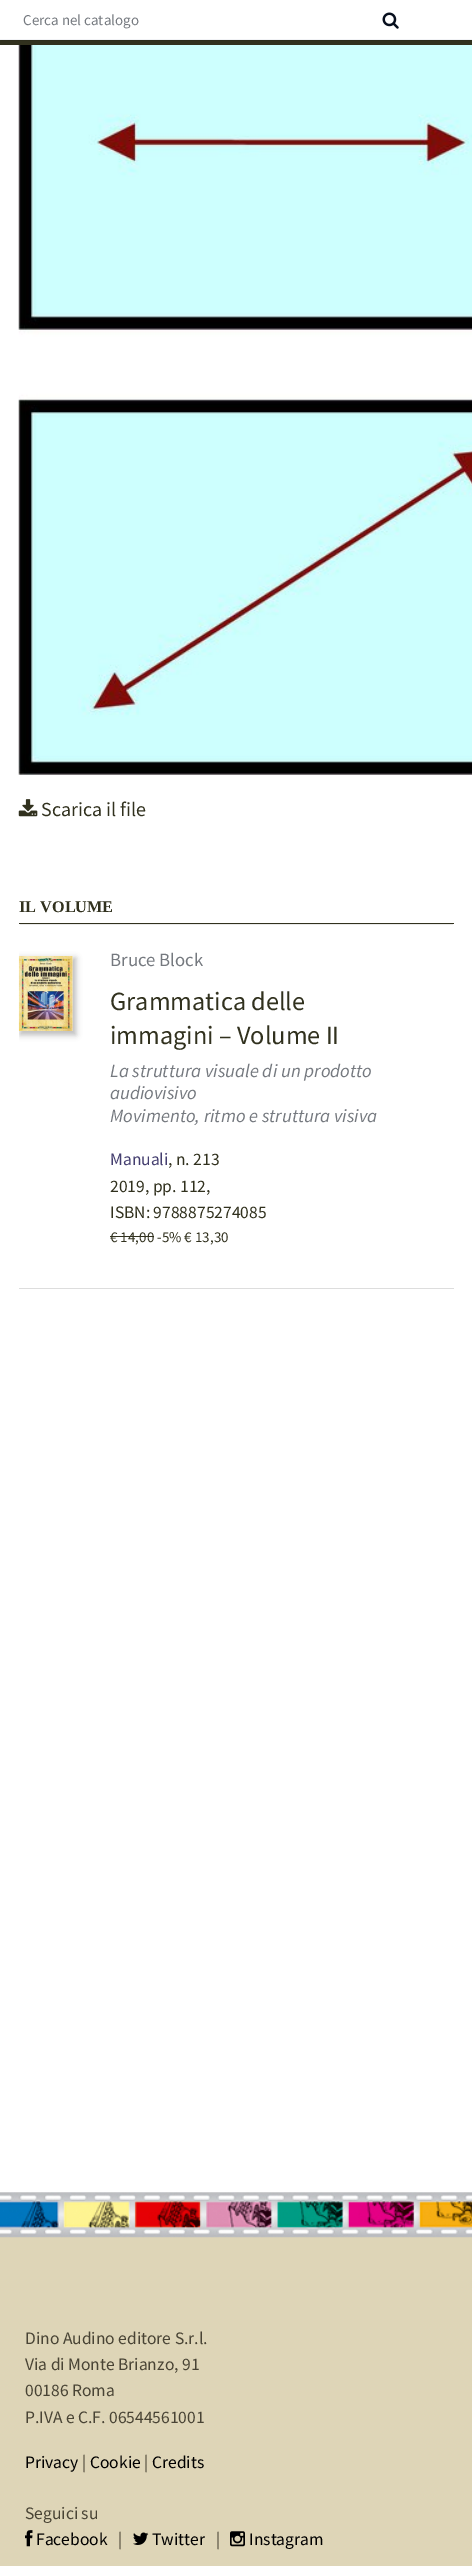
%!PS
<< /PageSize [472 2566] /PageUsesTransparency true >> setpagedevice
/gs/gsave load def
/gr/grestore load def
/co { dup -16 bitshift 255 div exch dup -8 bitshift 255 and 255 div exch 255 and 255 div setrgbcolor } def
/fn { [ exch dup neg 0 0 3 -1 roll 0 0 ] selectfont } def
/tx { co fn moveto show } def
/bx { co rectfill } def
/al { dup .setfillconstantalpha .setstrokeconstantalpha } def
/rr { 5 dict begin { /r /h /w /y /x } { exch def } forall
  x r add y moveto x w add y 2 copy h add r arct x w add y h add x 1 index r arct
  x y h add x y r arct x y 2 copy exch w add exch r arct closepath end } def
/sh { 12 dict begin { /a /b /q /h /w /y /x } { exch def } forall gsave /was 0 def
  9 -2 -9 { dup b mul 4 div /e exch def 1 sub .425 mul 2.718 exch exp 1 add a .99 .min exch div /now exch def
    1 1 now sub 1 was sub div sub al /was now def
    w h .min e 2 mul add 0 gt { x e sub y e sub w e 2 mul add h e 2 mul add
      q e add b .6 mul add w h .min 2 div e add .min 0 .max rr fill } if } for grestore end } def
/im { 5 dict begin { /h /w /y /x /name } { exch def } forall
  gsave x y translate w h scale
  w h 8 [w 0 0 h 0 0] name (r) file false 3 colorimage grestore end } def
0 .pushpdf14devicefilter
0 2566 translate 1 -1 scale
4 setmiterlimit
0 0 472 2566 16#FFFFFF bx
0 40 472 5 16#31311E bx
16#000000 co
1 4 470 37 0 .5 .1 sh
0 3 472 36 16#FFFFFF bx
0 39 472 1 16#F1F2F5 bx
(media/1.raw) 382 12 17 17 im
(media/2.raw) 18 45 454 730 im
(media/3.raw) 18 799 20 18 im
gs
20 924 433 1 rectclip
16#000000 co
20 896 433 29 0 .5 .1 sh
gr
19 923 435 1 16#31311E bx
19 1288 435 1 16#DDDDDD bx
gs
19 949 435 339 rectclip
16#BBBBBB co
20 958 56 77 0 3 1 sh
gr
(media/4.raw) 18 956 55 75 im
110 1236 44 1 16#31311E bx
0 2237 472 329 16#DED5B7 bx
(media/5.raw) 0 2192 472 46 im
(media/6.raw) 25 2530 8 17 im
(media/7.raw) 133 2532 16 13 im
(media/8.raw) 230 2531 15 16 im
(Cerca nel catalogo) 23 25 /SourceSansPro-Regular 15 16#75797F tx
(Scarica il file) 41 816 /SourceSansPro-Regular 20 16#31311E tx
(IL VOLUME) 19 912 /LiberationSerif-Bold 16.25 16#31311E tx
(Bruce Block) 110 966 /SourceSansPro-Regular 18.75 16#75797F tx
(Grammatica delle) 110 1010 /SourceSansPro-Regular 26.25 16#31311E tx
(immagini – Volume II) 110 1044 /SourceSansPro-Regular 26.25 16#31311E tx
(La struttura visuale di un prodotto) 110 1077 /SourceSansPro-Italic 18.75 16#75797F tx
(audiovisivo) 110 1099 /SourceSansPro-Italic 18.75 16#75797F tx
(Movimento, ritmo e struttura visiva) 110 1122 /SourceSansPro-Italic 18.75 16#75797F tx
(Manuali) 110 1165 /SourceSansPro-Regular 17.5 16#443E6F tx
(, n. 213) 168 1165 /SourceSansPro-Regular 17.5 16#31311E tx
(2019, pp. 112,) 110 1192 /SourceSansPro-Regular 17.5 16#31311E tx
(ISBN: 9788875274085) 110 1218 /SourceSansPro-Regular 17.5 16#31311E tx
(€ 14,00 -5% € 13,30) 110 1242 /SourceSansPro-Regular 15 16#31311E tx
(Dino Audino editore S.r.l.) 25 2344 /SourceSansPro-Regular 17.5 16#494435 tx
(Via di Monte Brianzo, 91) 25 2370 /SourceSansPro-Regular 17.5 16#494435 tx
(00186 Roma) 25 2396 /SourceSansPro-Regular 17.5 16#494435 tx
(P.IVA e C.F. 06544561001) 25 2423 /SourceSansPro-Regular 17.5 16#494435 tx
(Privacy) 25 2468 /SourceSansPro-Regular 17.5 16#000000 tx
(|) 82 2468 /SourceSansPro-Regular 17.5 16#494435 tx
(Cookie) 90 2468 /SourceSansPro-Regular 17.5 16#000000 tx
(|) 144 2468 /SourceSansPro-Regular 17.5 16#494435 tx
(Credits) 152 2468 /SourceSansPro-Regular 17.5 16#000000 tx
(Seguici su) 25 2519 /SourceSansPro-Regular 17.5 16#494435 tx
(Facebook) 36 2545 /SourceSansPro-Regular 17.5 16#000000 tx
(|) 118 2545 /SourceSansPro-Regular 17.5 16#494435 tx
(Twitter) 152 2545 /SourceSansPro-Regular 17.5 16#000000 tx
(|) 216 2545 /SourceSansPro-Regular 17.5 16#494435 tx
(Instagram) 249 2545 /SourceSansPro-Regular 17.5 16#000000 tx
.poppdf14devicefilter showpage
